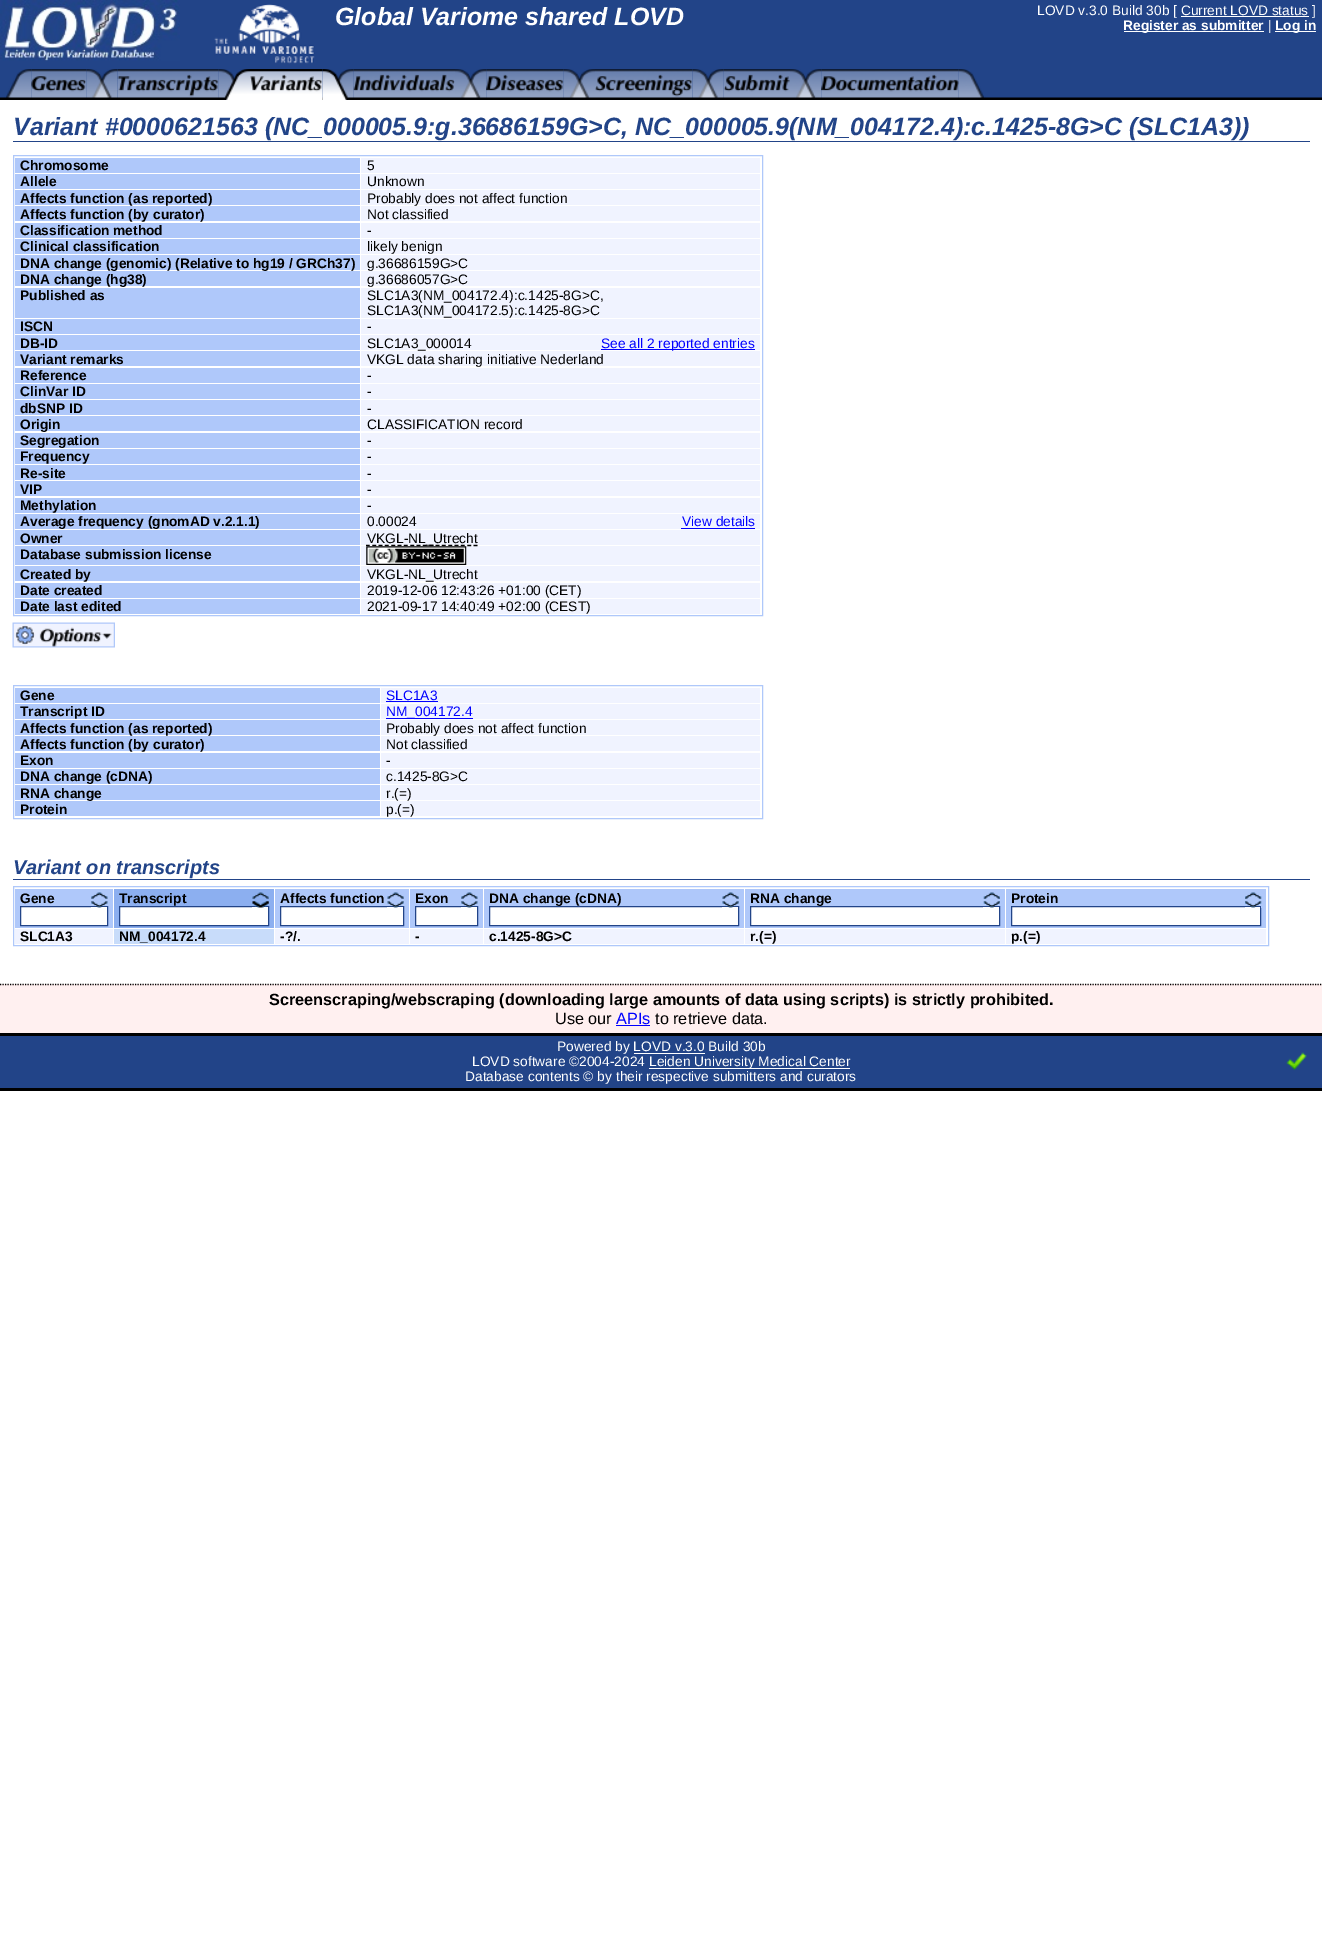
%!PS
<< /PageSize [1322 1936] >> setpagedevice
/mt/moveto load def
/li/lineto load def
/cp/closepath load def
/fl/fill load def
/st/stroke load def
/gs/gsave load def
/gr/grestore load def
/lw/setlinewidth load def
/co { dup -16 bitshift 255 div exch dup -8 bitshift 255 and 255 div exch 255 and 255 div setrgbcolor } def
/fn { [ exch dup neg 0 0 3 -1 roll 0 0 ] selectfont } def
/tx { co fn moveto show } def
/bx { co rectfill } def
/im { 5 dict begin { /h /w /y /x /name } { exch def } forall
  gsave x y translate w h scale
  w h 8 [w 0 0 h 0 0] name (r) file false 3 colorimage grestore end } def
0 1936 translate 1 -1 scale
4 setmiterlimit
0 0 1322 1936 16#FFFFFF bx
0 0 1322 69 16#224488 bx
(media/1.raw) 0 0 180 61 im
(media/2.raw) 214 4 101 60 im
1181 16 128 1 16#FFFFFF bx
1124 31 140 1 16#FFFFFF bx
1275 31 41 1 16#FFFFFF bx
(media/3.raw) 0 69 1322 31 im
(media/4.raw) 0 69 32 29 im
(media/5.raw) 31 69 56 29 im
(media/6.raw) 86 69 32 29 im
(media/7.raw) 117 69 102 29 im
(media/8.raw) 218 69 32 31 im
(media/9.raw) 250 69 73 31 im
(media/10.raw) 322 69 32 31 im
(media/11.raw) 353 69 102 29 im
(media/12.raw) 455 69 32 29 im
(media/13.raw) 486 69 78 29 im
(media/14.raw) 563 69 32 29 im
(media/15.raw) 595 69 98 29 im
(media/16.raw) 692 69 32 29 im
(media/17.raw) 723 69 67 29 im
(media/18.raw) 790 69 32 29 im
(media/19.raw) 821 69 138 29 im
(media/20.raw) 958 69 32 29 im
13 141 1297 1 16#224488 bx
16#AFC8FA co
13.5 155.5 749 460 rectstroke
15 158 345 15 16#AFC8FA bx
361 158 399 15 16#F0F3FF bx
15 174 345 15 16#AFC8FA bx
361 174 399 15 16#F0F3FF bx
15 190 345 15 16#AFC8FA bx
361 190 399 15 16#F0F3FF bx
15 206 345 15 16#AFC8FA bx
361 206 399 15 16#F0F3FF bx
15 223 345 15 16#AFC8FA bx
361 223 399 15 16#F0F3FF bx
15 239 345 15 16#AFC8FA bx
361 239 399 15 16#F0F3FF bx
15 255 345 15 16#AFC8FA bx
361 255 399 15 16#F0F3FF bx
15 271 345 15 16#AFC8FA bx
361 271 399 15 16#F0F3FF bx
15 288 345 30 16#AFC8FA bx
361 288 399 30 16#F0F3FF bx
15 319 345 15 16#AFC8FA bx
361 319 399 15 16#F0F3FF bx
15 335 345 15 16#AFC8FA bx
361 335 399 15 16#F0F3FF bx
601 349 154 1 16#0000FF bx
15 351 345 15 16#AFC8FA bx
361 351 399 15 16#F0F3FF bx
15 368 345 15 16#AFC8FA bx
361 368 399 15 16#F0F3FF bx
15 384 345 15 16#AFC8FA bx
361 384 399 15 16#F0F3FF bx
15 400 345 15 16#AFC8FA bx
361 400 399 15 16#F0F3FF bx
15 416 345 15 16#AFC8FA bx
361 416 399 15 16#F0F3FF bx
15 433 345 15 16#AFC8FA bx
361 433 399 15 16#F0F3FF bx
15 449 345 15 16#AFC8FA bx
361 449 399 15 16#F0F3FF bx
15 465 345 15 16#AFC8FA bx
361 465 399 15 16#F0F3FF bx
15 481 345 15 16#AFC8FA bx
361 481 399 15 16#F0F3FF bx
15 498 345 15 16#AFC8FA bx
361 498 399 15 16#F0F3FF bx
15 514 345 15 16#AFC8FA bx
361 514 399 15 16#F0F3FF bx
681 528 74 1 16#0000FF bx
15 530 345 15 16#AFC8FA bx
361 530 399 15 16#F0F3FF bx
361 546 399 19 16#F0F3FF bx
16#000000 co
1.2 lw
[3.75 2.58] 0 setdash
366 545.5 mt 477.5 545.5 li st
15 546 345 19 16#AFC8FA bx
(media/21.raw) 366 546 101 19 im
15 566 345 15 16#AFC8FA bx
361 566 399 15 16#F0F3FF bx
15 583 345 15 16#AFC8FA bx
361 583 399 15 16#F0F3FF bx
15 599 345 15 16#AFC8FA bx
361 599 399 15 16#F0F3FF bx
(media/22.raw) 12 622 103 26 im
16#AFC8FA co
1 lw
[] 0 setdash
13.5 685.5 749 133 rectstroke
15 688 365 15 16#AFC8FA bx
381 688 379 15 16#F0F3FF bx
386 701 52 1 16#0000FF bx
15 704 365 15 16#AFC8FA bx
381 704 379 15 16#F0F3FF bx
386 718 87 1 16#0000FF bx
15 720 365 15 16#AFC8FA bx
381 720 379 15 16#F0F3FF bx
15 736 365 15 16#AFC8FA bx
381 736 379 15 16#F0F3FF bx
15 753 365 15 16#AFC8FA bx
381 753 379 15 16#F0F3FF bx
15 769 365 15 16#AFC8FA bx
381 769 379 15 16#F0F3FF bx
15 785 365 15 16#AFC8FA bx
381 785 379 15 16#F0F3FF bx
15 801 365 15 16#AFC8FA bx
381 801 379 15 16#F0F3FF bx
13 879 1297 1 16#224488 bx
16#AFC8FA co
13.5 886.5 1255 59 rectstroke
15 889 98 39 16#AFC8FA bx
16#FFFFFF co
20.5 906.5 mt 107.5 906.5 li 107.5 925.5 li 20.5 925.5 li cp gs fl gr
16#224488 co
st
(media/23.raw) 91 892 17 16 im
114 889 160 39 16#8CAFF0 bx
16#FFFFFF co
119.5 906.5 mt 268.5 906.5 li 268.5 925.5 li 119.5 925.5 li cp gs fl gr
16#224488 co
st
(media/24.raw) 252 892 17 16 im
275 889 134 39 16#AFC8FA bx
16#FFFFFF co
280.5 906.5 mt 403.5 906.5 li 403.5 925.5 li 280.5 925.5 li cp gs fl gr
16#224488 co
st
(media/25.raw) 387 892 17 16 im
410 889 73 39 16#AFC8FA bx
16#FFFFFF co
415.5 906.5 mt 477.5 906.5 li 477.5 925.5 li 415.5 925.5 li cp gs fl gr
16#224488 co
st
(media/23.raw) 461 892 17 16 im
484 889 260 39 16#AFC8FA bx
16#FFFFFF co
489.5 906.5 mt 738.5 906.5 li 738.5 925.5 li 489.5 925.5 li cp gs fl gr
16#224488 co
st
(media/26.raw) 722 892 17 16 im
745 889 260 39 16#AFC8FA bx
16#FFFFFF co
750.5 906.5 mt 999.5 906.5 li 999.5 925.5 li 750.5 925.5 li cp gs fl gr
16#224488 co
st
(media/27.raw) 983 892 17 16 im
1006 889 260 39 16#AFC8FA bx
16#FFFFFF co
1011.5 906.5 mt 1260.5 906.5 li 1260.5 925.5 li 1011.5 925.5 li cp gs fl gr
16#224488 co
st
(media/28.raw) 1245 892 17 16 im
15 929 98 15 16#F0F3FF bx
114 929 160 15 16#C8DCFA bx
275 929 134 15 16#F0F3FF bx
410 929 73 15 16#F0F3FF bx
484 929 260 15 16#F0F3FF bx
745 929 260 15 16#F0F3FF bx
1006 929 260 15 16#F0F3FF bx
0 984 1322 49 16#FFF0F0 bx
16#000000 co
1.2 lw
[1.25 1.25] 0 setdash
0 984.5 mt 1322.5 984.5 li st
616 1025 34 1 16#0000FF bx
0 1036 1322 52 16#224488 bx
0 1033 1322 3 16#000000 bx
0 1088 1322 3 16#000000 bx
634 1053 71 1 16#FFFFFF bx
649 1068 201 1 16#FFFFFF bx
(media/29.raw) 1286 1052 21 19 im
(Global Variome shared LOVD) 335 25 /LiberationSans-BoldItalic 25 16#FFFFFF tx
(LOVD v.3.0 Build 30b [ Current LOVD status ]) 1037 15 /LiberationSans-Regular 13.75 16#FFFFFF tx
(Register as submitter) 1123 30 /LiberationSans-Bold 13.75 16#FFFFFF tx
(|) 1268 30 /LiberationSans-Regular 13.75 16#FFFFFF tx
(Log in) 1275 30 /LiberationSans-Bold 13.75 16#FFFFFF tx
(Variant #0000621563 \(NC_000005.9:g.36686159G>C, NC_000005.9\(NM_004172.4\):c.1425-8G>C \(SLC1A3\)\)) 13 135 /LiberationSans-BoldItalic 25 16#224488 tx
(Chromosome) 20 170 /LiberationSans-Bold 13.75 16#000000 tx
(5) 367 170 /LiberationSans-Regular 13.75 16#000000 tx
(Allele) 20 186 /LiberationSans-Bold 13.75 16#000000 tx
(Unknown) 367 186 /LiberationSans-Regular 13.75 16#000000 tx
(Affects function \(as reported\)) 20 203 /LiberationSans-Bold 13.75 16#000000 tx
(Probably does not affect function) 367 203 /LiberationSans-Regular 13.75 16#000000 tx
(Affects function \(by curator\)) 20 219 /LiberationSans-Bold 13.75 16#000000 tx
(Not classified) 367 219 /LiberationSans-Regular 13.75 16#000000 tx
(Classification method) 20 235 /LiberationSans-Bold 13.75 16#000000 tx
(-) 367 235 /LiberationSans-Regular 13.75 16#000000 tx
(Clinical classification) 20 251 /LiberationSans-Bold 13.75 16#000000 tx
(likely benign) 367 251 /LiberationSans-Regular 13.75 16#000000 tx
(DNA change \(genomic\) \(Relative to hg19 / GRCh37\)) 20 268 /LiberationSans-Bold 13.75 16#000000 tx
(g.36686159G>C) 367 268 /LiberationSans-Regular 13.75 16#000000 tx
(DNA change \(hg38\)) 20 284 /LiberationSans-Bold 13.75 16#000000 tx
(g.36686057G>C) 367 284 /LiberationSans-Regular 13.75 16#000000 tx
(Published as) 20 300 /LiberationSans-Bold 13.75 16#000000 tx
(SLC1A3\(NM_004172.4\):c.1425-8G>C,) 367 300 /LiberationSans-Regular 13.75 16#000000 tx
(SLC1A3\(NM_004172.5\):c.1425-8G>C) 367 315 /LiberationSans-Regular 13.75 16#000000 tx
(ISCN) 20 331 /LiberationSans-Bold 13.75 16#000000 tx
(-) 367 331 /LiberationSans-Regular 13.75 16#000000 tx
(DB-ID) 20 348 /LiberationSans-Bold 13.75 16#000000 tx
(SLC1A3_000014) 367 348 /LiberationSans-Regular 13.75 16#000000 tx
(See all 2 reported entries) 601 348 /LiberationSans-Regular 13.75 16#0000FF tx
(Variant remarks) 20 364 /LiberationSans-Bold 13.75 16#000000 tx
(VKGL data sharing initiative Nederland) 367 364 /LiberationSans-Regular 13.75 16#000000 tx
(Reference) 20 380 /LiberationSans-Bold 13.75 16#000000 tx
(-) 367 380 /LiberationSans-Regular 13.75 16#000000 tx
(ClinVar ID) 20 396 /LiberationSans-Bold 13.75 16#000000 tx
(-) 367 396 /LiberationSans-Regular 13.75 16#000000 tx
(dbSNP ID) 20 413 /LiberationSans-Bold 13.75 16#000000 tx
(-) 367 413 /LiberationSans-Regular 13.75 16#000000 tx
(Origin) 20 429 /LiberationSans-Bold 13.75 16#000000 tx
(CLASSIFICATION record) 367 429 /LiberationSans-Regular 13.75 16#000000 tx
(Segregation) 20 445 /LiberationSans-Bold 13.75 16#000000 tx
(-) 367 445 /LiberationSans-Regular 13.75 16#000000 tx
(Frequency) 20 461 /LiberationSans-Bold 13.75 16#000000 tx
(-) 367 461 /LiberationSans-Regular 13.75 16#000000 tx
(Re-site) 20 478 /LiberationSans-Bold 13.75 16#000000 tx
(-) 367 478 /LiberationSans-Regular 13.75 16#000000 tx
(VIP) 20 494 /LiberationSans-Bold 13.75 16#000000 tx
(-) 367 494 /LiberationSans-Regular 13.75 16#000000 tx
(Methylation) 20 510 /LiberationSans-Bold 13.75 16#000000 tx
(-) 367 510 /LiberationSans-Regular 13.75 16#000000 tx
(Average frequency \(gnomAD v.2.1.1\)) 20 526 /LiberationSans-Bold 13.75 16#000000 tx
(0.00024) 367 526 /LiberationSans-Regular 13.75 16#000000 tx
(View details) 682 526 /LiberationSans-Regular 13.75 16#0000FF tx
(Owner) 20 543 /LiberationSans-Bold 13.75 16#000000 tx
(VKGL-NL_Utrecht) 367 543 /LiberationSans-Regular 13.75 16#000000 tx
(Database submission license) 20 559 /LiberationSans-Bold 13.75 16#000000 tx
(Created by) 20 579 /LiberationSans-Bold 13.75 16#000000 tx
(VKGL-NL_Utrecht) 367 579 /LiberationSans-Regular 13.75 16#000000 tx
(Date created) 20 595 /LiberationSans-Bold 13.75 16#000000 tx
(2019-12-06 12:43:26 +01:00 \(CET\)) 367 595 /LiberationSans-Regular 13.75 16#000000 tx
(Date last edited) 20 611 /LiberationSans-Bold 13.75 16#000000 tx
(2021-09-17 14:40:49 +02:00 \(CEST\)) 367 611 /LiberationSans-Regular 13.75 16#000000 tx
(Gene) 20 700 /LiberationSans-Bold 13.75 16#000000 tx
(SLC1A3) 386 700 /LiberationSans-Regular 13.75 16#0000FF tx
(Transcript ID) 20 716 /LiberationSans-Bold 13.75 16#000000 tx
(NM_004172.4) 386 716 /LiberationSans-Regular 13.75 16#0000FF tx
(Affects function \(as reported\)) 20 733 /LiberationSans-Bold 13.75 16#000000 tx
(Probably does not affect function) 386 733 /LiberationSans-Regular 13.75 16#000000 tx
(Affects function \(by curator\)) 20 749 /LiberationSans-Bold 13.75 16#000000 tx
(Not classified) 386 749 /LiberationSans-Regular 13.75 16#000000 tx
(Exon) 20 765 /LiberationSans-Bold 13.75 16#000000 tx
(-) 386 765 /LiberationSans-Regular 13.75 16#000000 tx
(DNA change \(cDNA\)) 20 781 /LiberationSans-Bold 13.75 16#000000 tx
(c.1425-8G>C) 386 781 /LiberationSans-Regular 13.75 16#000000 tx
(RNA change) 20 798 /LiberationSans-Bold 13.75 16#000000 tx
(r.\(=\)) 386 798 /LiberationSans-Regular 13.75 16#000000 tx
(Protein) 20 814 /LiberationSans-Bold 13.75 16#000000 tx
(p.\(=\)) 386 814 /LiberationSans-Regular 13.75 16#000000 tx
(Variant on transcripts) 13 874 /LiberationSans-BoldItalic 20 16#224488 tx
(Gene) 20 903 /LiberationSans-Bold 13.75 16#000000 tx
(Transcript) 119 903 /LiberationSans-Bold 13.75 16#000000 tx
(Affects function) 280 903 /LiberationSans-Bold 13.75 16#000000 tx
(Exon) 415 903 /LiberationSans-Bold 13.75 16#000000 tx
(DNA change \(cDNA\)) 489 903 /LiberationSans-Bold 13.75 16#000000 tx
(RNA change) 750 903 /LiberationSans-Bold 13.75 16#000000 tx
(Protein) 1011 903 /LiberationSans-Bold 13.75 16#000000 tx
(SLC1A3) 20 941 /LiberationSans-Bold 13.75 16#000000 tx
(NM_004172.4) 119 941 /LiberationSans-Bold 13.75 16#000000 tx
(-?/.) 280 941 /LiberationSans-Bold 13.75 16#000000 tx
(-) 415 941 /LiberationSans-Bold 13.75 16#000000 tx
(c.1425-8G>C) 489 941 /LiberationSans-Bold 13.75 16#000000 tx
(r.\(=\)) 750 941 /LiberationSans-Bold 13.75 16#000000 tx
(p.\(=\)) 1011 941 /LiberationSans-Bold 13.75 16#000000 tx
(Screenscraping/webscraping \(downloading large amounts of data using scripts\) is strictly prohibited.) 269 1005 /LiberationSans-Bold 16.25 16#000000 tx
(Use our) 555 1024 /LiberationSans-Regular 16.25 16#000000 tx
(APIs) 616 1024 /LiberationSans-Regular 16.25 16#0000FF tx
(to retrieve data.) 655 1024 /LiberationSans-Regular 16.25 16#000000 tx
(Powered by LOVD v.3.0 Build 30b) 557 1051 /LiberationSans-Regular 13.75 16#FFFFFF tx
(LOVD software ©2004-2024) 472 1066 /LiberationSans-Regular 13.75 16#FFFFFF tx
(Leiden University Medical Center) 649 1066 /LiberationSans-Regular 13.75 16#FFFFFF tx
(Database contents © by their respective submitters and curators) 465 1081 /LiberationSans-Regular 13.75 16#FFFFFF tx
showpage
